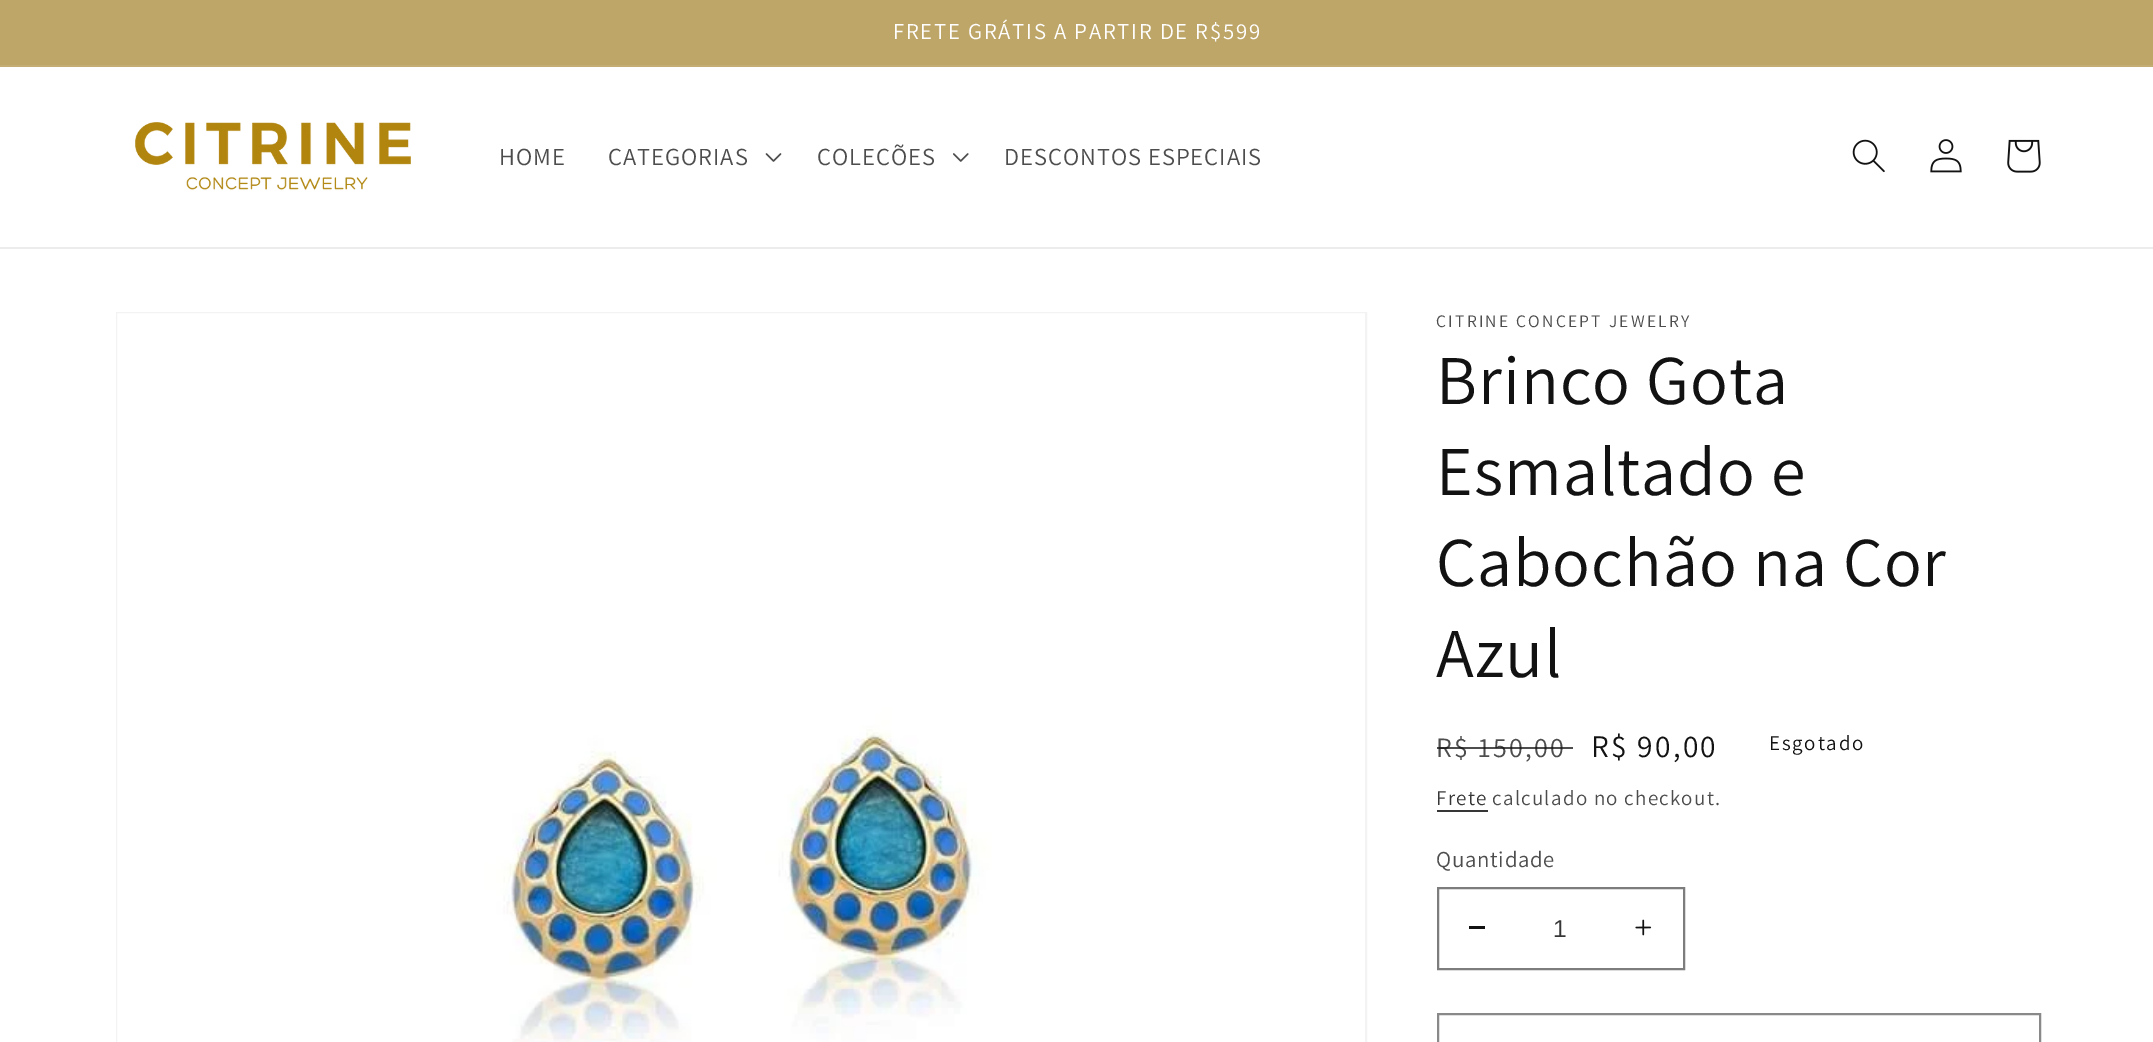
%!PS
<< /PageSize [2153 1042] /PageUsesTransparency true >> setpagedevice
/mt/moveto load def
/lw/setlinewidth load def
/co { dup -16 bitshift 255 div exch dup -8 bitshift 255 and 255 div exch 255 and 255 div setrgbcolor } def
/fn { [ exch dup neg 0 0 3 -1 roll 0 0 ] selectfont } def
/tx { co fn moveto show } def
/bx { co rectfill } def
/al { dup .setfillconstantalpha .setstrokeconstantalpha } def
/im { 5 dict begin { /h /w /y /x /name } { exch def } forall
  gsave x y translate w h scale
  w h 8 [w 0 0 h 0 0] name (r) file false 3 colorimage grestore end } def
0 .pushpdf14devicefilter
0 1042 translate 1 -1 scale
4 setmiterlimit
0 0 2153 1042 16#FFFFFF bx
0 0 2153 65 16#BEA669 bx
0 65 2153 2 16#C3AD75 bx
0 247 2153 2 16#ECECEC bx
(media/1.raw) 135 122 276 69 im
(media/2.raw) 765 153 17 9 im
(media/3.raw) 953 153 16 9 im
(media/4.raw) 1852 139 33 34 im
(media/5.raw) 1930 139 32 34 im
(media/6.raw) 2007 139 34 34 im
16#F3F3F3 co
2 lw
117 313 1249 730 rectstroke
(media/7.raw) 117 313 1248 729 im
1437 810 51 2 16#363636 bx
1469 926 16 3 16#121212 bx
(media/8.raw) 1635 919 17 17 im
16#7D7D7D co
1438 888 246 81 rectstroke
16#898989 co
1438 1014 602 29 rectstroke
/Assistant-Regular 22.75 fn
16#FFFFFF co
893 39 mt 1.75 0 (FRETE GRÁTIS A PARTIR DE R$599) ashow
/Assistant-Regular 24.5 fn
16#4D4D4D co
499 165 mt 1 0 (HOME) ashow
608 165 mt 1 0 (CATEGORIAS) ashow
817 165 mt 1 0 (COLEÇÕES) ashow
1004 165 mt 1 0 (DESCONTOS ESPECIAIS) ashow
/Assistant-Regular 17.5 fn
1436 327 mt 2.25 0 (CITRINE CONCEPT JEWELRY) ashow
/Assistant-Regular 70 fn
16#121212 co
1436 404 mt 1 0 (Brinco Gota) ashow
1436 495 mt 1 0 (Esmaltado e) ashow
1436 586 mt 1 0 (Cabochão na Cor) ashow
1436 677 mt 1 0 (Azul) ashow
/Assistant-Regular 28 fn
16#4D4D4D co
1436 757 mt 2.25 0 (R$ 150,00) ashow
0.75 al
1437 747 136 2 16#121212 bx
/Assistant-Regular 31.5 fn
1 al
1591 757 mt 2.25 0 (R$ 90,00) ashow
/Assistant-Regular 21 fn
1769 750 mt 1.75 0 (Esgotado) ashow
16#363636 co
1436 805 mt 1.25 0 (Frete) ashow
16#4D4D4D co
1492 805 mt 1.25 0 (calculado no checkout.) ashow
/Assistant-Regular 22.75 fn
1436 867 mt .75 0 (Quantidade) ashow
(1) 1553 937 /LiberationSans-Regular 24.5 16#363636 tx
.poppdf14devicefilter showpage
